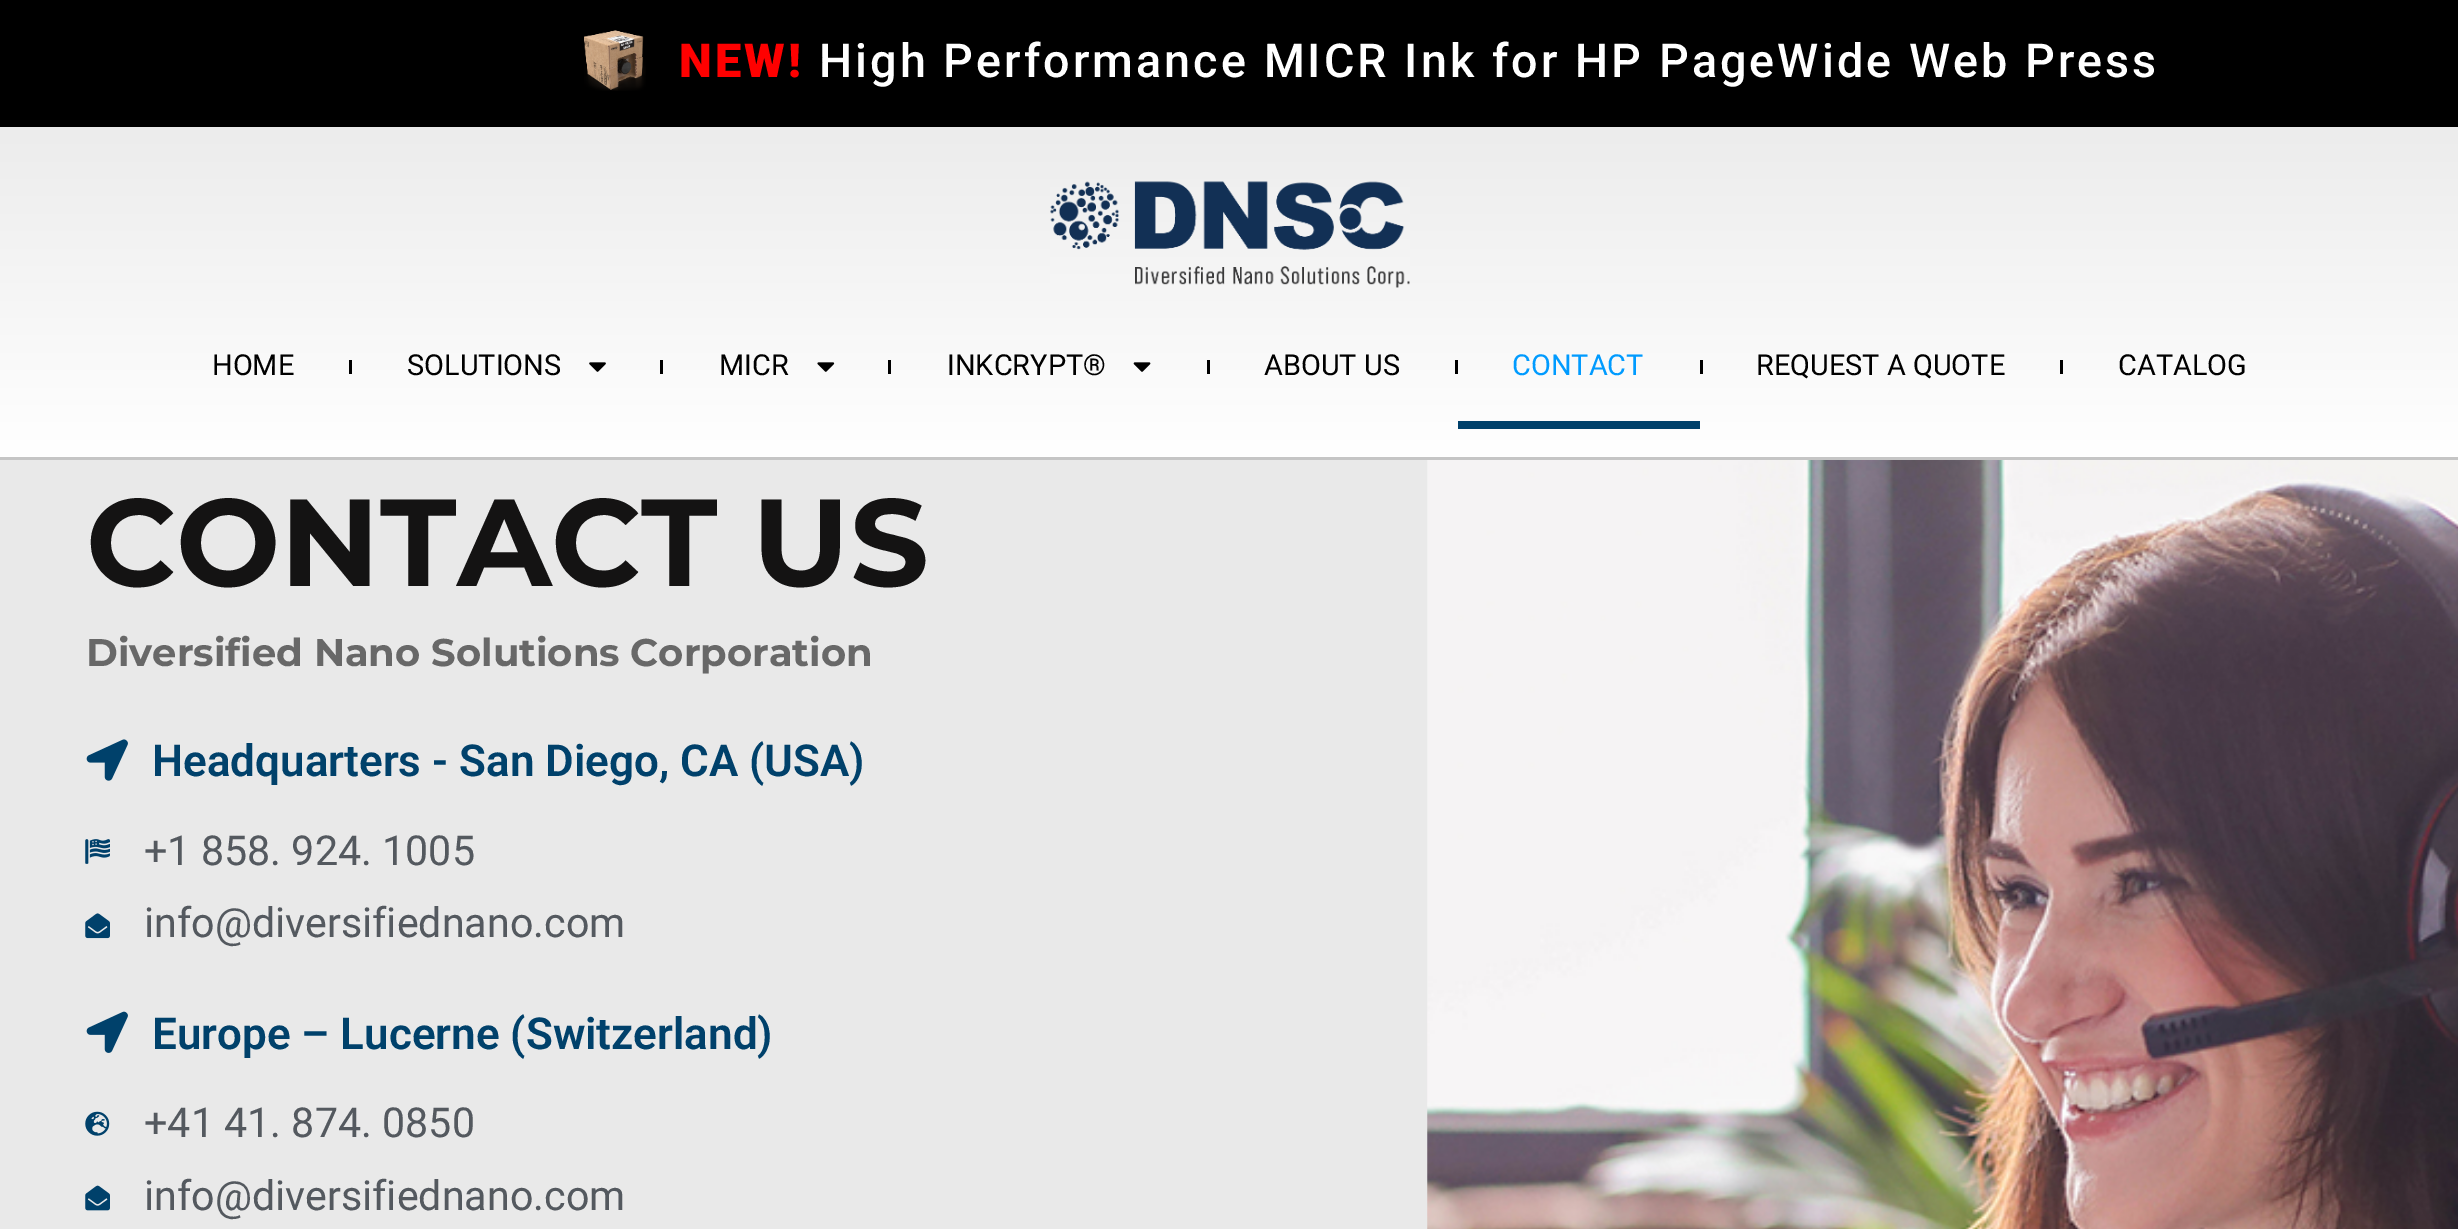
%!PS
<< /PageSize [2458 1229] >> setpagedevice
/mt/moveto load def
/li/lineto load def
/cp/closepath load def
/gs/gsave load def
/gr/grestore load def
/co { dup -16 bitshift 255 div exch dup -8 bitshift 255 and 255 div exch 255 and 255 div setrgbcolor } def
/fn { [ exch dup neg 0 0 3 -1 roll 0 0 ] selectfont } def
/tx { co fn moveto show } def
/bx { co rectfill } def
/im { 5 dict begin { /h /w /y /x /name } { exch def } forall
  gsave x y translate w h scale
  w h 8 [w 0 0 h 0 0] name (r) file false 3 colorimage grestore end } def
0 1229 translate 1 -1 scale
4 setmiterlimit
0 0 2458 1229 16#E9E9E9 bx
0 0 2458 127 16#000000 bx
(media/1.raw) 584 30 62 61 im
gs 0 127 mt 2458 127 li 2458 457 li 0 457 li cp clip newpath
<< /ShadingType 2 /ColorSpace /DeviceRGB /Coords [1229 126 1229 457] /Extend [true true] /Function << /FunctionType 2 /Domain [0 1] /C0 [.925 .925 .925] /C1 [1 1 1] /N 1 >> >> shfill gr
0 457 2458 3 16#C5C5C5 bx
(media/2.raw) 1050 181 360 107 im
349 360 3 14 16#000000 bx
(media/3.raw) 589 362 17 10 im
660 360 3 14 16#000000 bx
(media/4.raw) 817 362 18 10 im
888 360 3 14 16#000000 bx
(media/5.raw) 1133 362 18 10 im
1207 360 3 14 16#000000 bx
1455 360 3 14 16#000000 bx
1458 421 242 8 16#00416B bx
1700 360 3 14 16#000000 bx
2060 360 3 14 16#000000 bx
(media/6.raw) 86 739 42 42 im
(media/7.raw) 85 839 25 25 im
(media/8.raw) 85 913 25 26 im
(media/9.raw) 86 1011 42 42 im
(media/10.raw) 85 1111 25 25 im
(media/11.raw) 85 1185 25 26 im
(media/12.raw) 1427 460 1031 769 im
/Roboto-Black 46.75 fn
16#FF0000 co
679 77 mt 3.03 0 (NEW!) ashow
/Roboto-Medium 46.75 fn
16#FFFFFF co
819 77 mt 3.03 0 (High Performance MICR Ink for HP PageWide Web Press) ashow
(HOME) 212 375 /Roboto-Regular 28.9 16#000000 tx
(SOLUTIONS) 407 375 /Roboto-Regular 28.9 16#000000 tx
(MICR) 719 375 /Roboto-Regular 28.9 16#000000 tx
(INKCRYPT®) 947 375 /Roboto-Regular 28.9 16#000000 tx
(ABOUT US) 1264 375 /Roboto-Regular 28.9 16#000000 tx
(CONTACT) 1512 375 /Roboto-Regular 28.9 16#009BFF tx
(REQUEST A QUOTE) 1756 375 /Roboto-Regular 28.9 16#000000 tx
(CATALOG) 2118 375 /Roboto-Regular 28.9 16#000000 tx
(CONTACT US) 86 586 /Montserrat-Bold 123.75 16#141313 tx
(Diversified Nano Solutions Corporation) 86 666 /Montserrat-Bold 38.5 16#686868 tx
(Headquarters - San Diego, CA \(USA\)) 152 776 /Roboto-SemiBold 44 16#00416B tx
(+1 858. 924. 1005) 144 865 /Roboto-Regular 41.25 16#54595F tx
(info@diversifiednano.com) 144 937 /Roboto-Regular 41.25 16#54595F tx
(Europe – Lucerne \(Switzerland\)) 152 1049 /Roboto-SemiBold 44 16#00416B tx
(+41 41. 874. 0850) 144 1137 /Roboto-Regular 41.25 16#54595F tx
(info@diversifiednano.com) 144 1210 /Roboto-Regular 41.25 16#54595F tx
showpage
